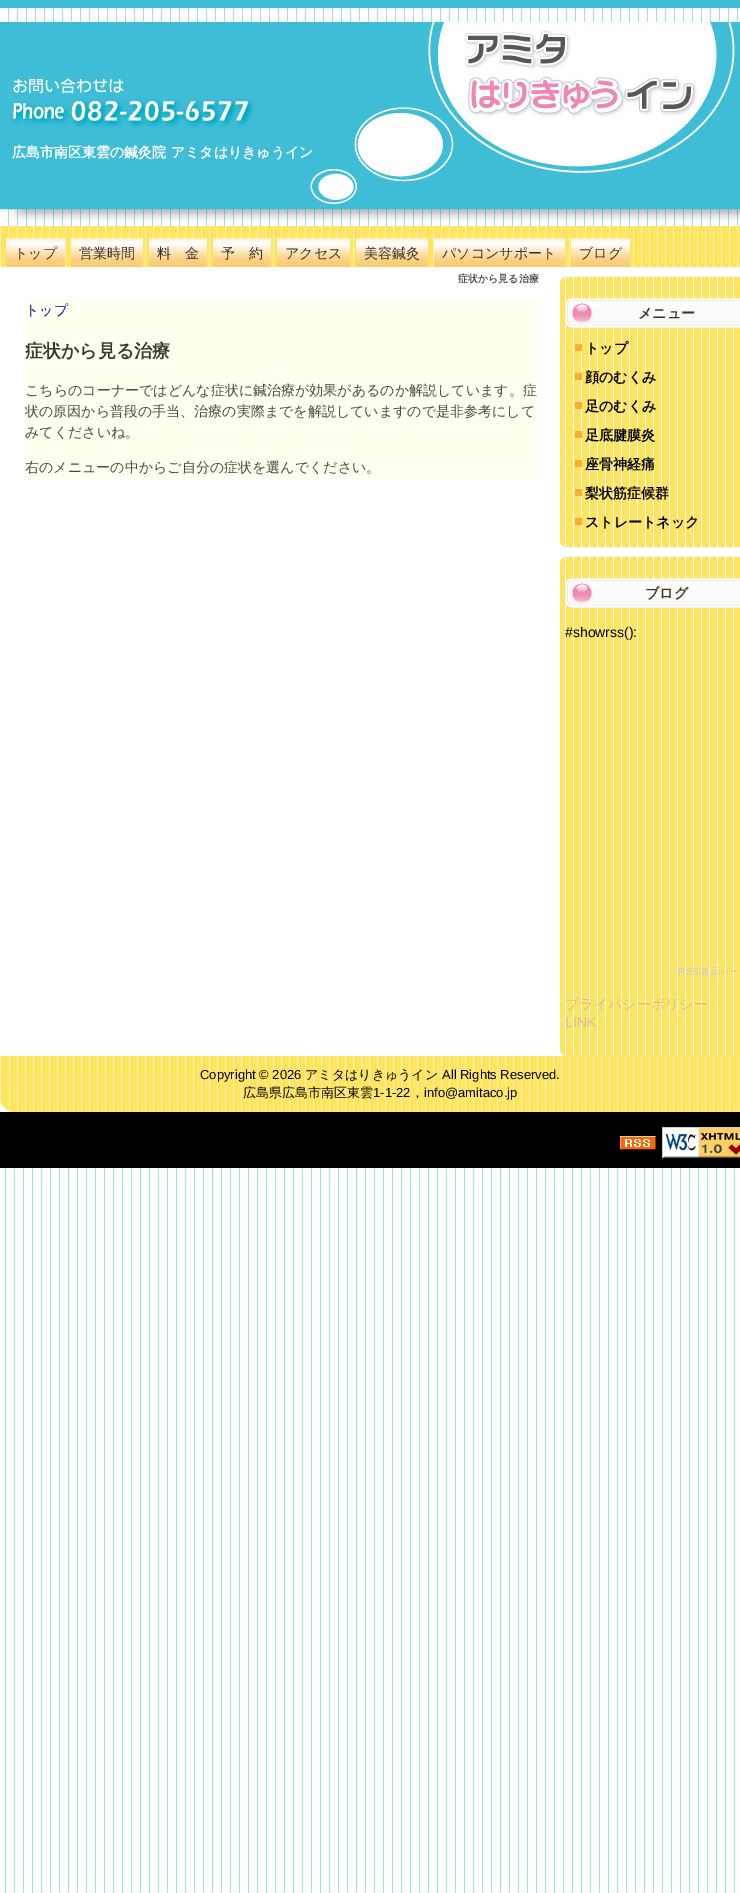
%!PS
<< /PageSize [740 1893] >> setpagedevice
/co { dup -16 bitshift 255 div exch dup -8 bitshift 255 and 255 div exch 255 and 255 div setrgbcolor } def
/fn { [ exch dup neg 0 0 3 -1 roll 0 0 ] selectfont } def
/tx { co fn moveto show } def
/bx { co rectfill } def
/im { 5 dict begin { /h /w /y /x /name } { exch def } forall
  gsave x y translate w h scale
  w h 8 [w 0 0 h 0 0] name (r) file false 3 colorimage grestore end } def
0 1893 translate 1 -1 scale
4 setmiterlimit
0 0 740 1893 16#41BDD8 bx
(media/1.raw) 0 1168 740 725 im
(media/2.raw) 0 1 740 225 im
(media/3.raw) 0 226 740 41 im
(media/4.raw) 6 238 59 29 im
(media/5.raw) 71 238 72 29 im
(media/6.raw) 149 238 58 29 im
(media/6.raw) 213 238 58 29 im
(media/7.raw) 277 238 73 29 im
(media/5.raw) 356 238 72 29 im
(media/8.raw) 434 238 131 29 im
(media/4.raw) 571 238 59 29 im
0 267 740 789 16#FFFFFF bx
25 300 514 178 16#FFFFF0 bx
(media/9.raw) 560 277 180 6 im
(media/10.raw) 560 283 180 258 im
(media/11.raw) 565 298 175 30 im
575 344 7 7 16#F6AD3A bx
575 373 7 7 16#F6AD3A bx
575 402 7 7 16#F6AD3A bx
575 431 7 7 16#F6AD3A bx
575 460 7 7 16#F6AD3A bx
575 489 7 7 16#F6AD3A bx
575 518 7 7 16#F6AD3A bx
(media/12.raw) 560 541 180 6 im
(media/9.raw) 560 557 180 6 im
(media/13.raw) 560 563 180 487 im
(media/11.raw) 565 578 175 30 im
(media/12.raw) 560 1050 180 6 im
(media/14.raw) 0 1056 740 56 im
0 1112 740 56 16#000000 bx
(media/15.raw) 620 1136 36 14 im
(media/16.raw) 662 1127 78 31 im
(広島市南区東雲の鍼灸院 アミタはりきゅうイン) 12 157 /WenQuanYiZenHei-Bold 14 16#FFFFFF tx
(トップ) 14 258 /WenQuanYiZenHei-Medium 14 16#333333 tx
(営業時間) 79 258 /WenQuanYiZenHei-Medium 14 16#333333 tx
(料　金) 157 258 /WenQuanYiZenHei-Medium 14 16#333333 tx
(予　約) 221 258 /WenQuanYiZenHei-Medium 14 16#333333 tx
(アクセス) 285 258 /WenQuanYiZenHei-Medium 14 16#333333 tx
(美容鍼灸) 364 258 /WenQuanYiZenHei-Medium 14 16#333333 tx
(パソコンサポート) 442 258 /WenQuanYiZenHei-Medium 14 16#333333 tx
(ブログ) 579 258 /WenQuanYiZenHei-Medium 14 16#333333 tx
(症状から見る治療) 458 282 /WenQuanYiZenHei-Bold 10 16#454C43 tx
(トップ) 25 315 /WenQuanYiZenHei-Medium 14 16#000080 tx
(症状から見る治療) 25 357 /WenQuanYiZenHei-Bold 18 16#343932 tx
(こちらのコーナーではどんな症状に鍼治療が効果があるのか解説しています。症) 25 395 /WenQuanYiZenHei-Medium 14 16#454C43 tx
(状の原因から普段の手当、治療の実際までを解説していますので是非参考にして) 25 416 /WenQuanYiZenHei-Medium 14 16#454C43 tx
(みてくださいね。) 25 437 /WenQuanYiZenHei-Medium 14 16#454C43 tx
(右のメニューの中からご自分の症状を選んでください。) 25 472 /WenQuanYiZenHei-Medium 14 16#454C43 tx
(メニュー) 638 318 /WenQuanYiZenHei-Bold 14 16#443311 tx
(トップ) 585 353 /WenQuanYiZenHei-Bold 14 16#000000 tx
(顔のむくみ) 585 382 /WenQuanYiZenHei-Bold 14 16#000000 tx
(足のむくみ) 585 411 /WenQuanYiZenHei-Bold 14 16#000000 tx
(足底腱膜炎) 585 440 /WenQuanYiZenHei-Bold 14 16#000000 tx
(座骨神経痛) 585 469 /WenQuanYiZenHei-Bold 14 16#000000 tx
(梨状筋症候群) 585 498 /WenQuanYiZenHei-Bold 14 16#000000 tx
(ストレートネック) 585 527 /WenQuanYiZenHei-Bold 14 16#000000 tx
(ブログ) 645 598 /WenQuanYiZenHei-Bold 14 16#443311 tx
(#showrss\(\):) 565 637 /LiberationSans-Regular 14 16#000000 tx
(RSS) 678 975 /LiberationSans-Regular 10 16#CCCCCC tx
(表示パー) 699 975 /WenQuanYiZenHei-Medium 10 16#CCCCCC tx
(プライバシーポリシー) 565 1009 /WenQuanYiZenHei-Medium 14 16#CCC299 tx
(LINK) 565 1027 /LiberationSans-Regular 14 16#CCC299 tx
(Copyright © 2026) 200 1079 /LiberationSans-Regular 13 16#000000 tx
(アミタはりきゅうイン) 305 1079 /WenQuanYiZenHei-Medium 13 16#000000 tx
(All Rights Reserved.) 442 1079 /LiberationSans-Regular 13 16#000000 tx
(広島県広島市南区東雲) 243 1097 /WenQuanYiZenHei-Medium 13 16#000000 tx
(1-1-22) 373 1097 /LiberationSans-Regular 13 16#000000 tx
(，) 411 1097 /WenQuanYiZenHei-Medium 13 16#000000 tx
(info@amitaco.jp) 424 1097 /LiberationSans-Regular 13 16#000000 tx
showpage
